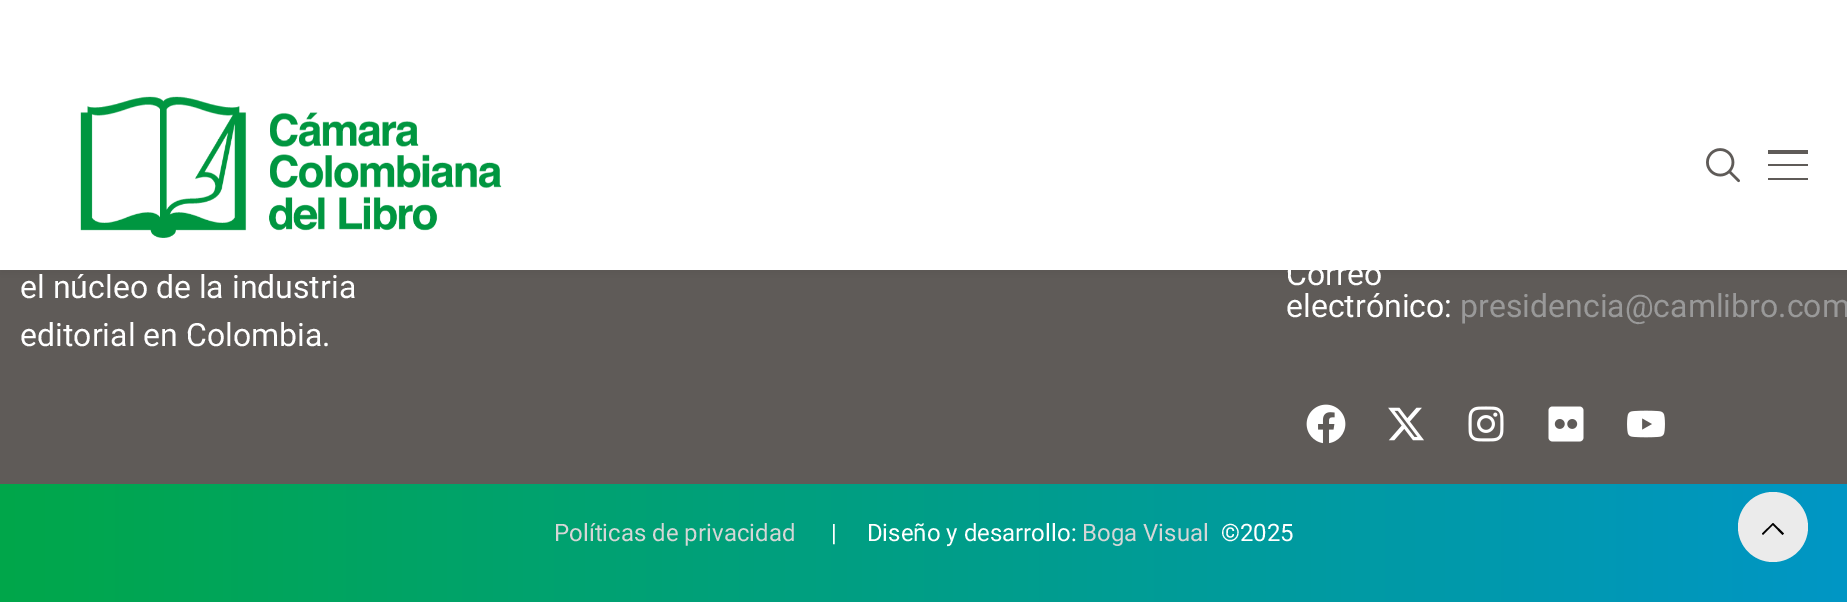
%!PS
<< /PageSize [1847 602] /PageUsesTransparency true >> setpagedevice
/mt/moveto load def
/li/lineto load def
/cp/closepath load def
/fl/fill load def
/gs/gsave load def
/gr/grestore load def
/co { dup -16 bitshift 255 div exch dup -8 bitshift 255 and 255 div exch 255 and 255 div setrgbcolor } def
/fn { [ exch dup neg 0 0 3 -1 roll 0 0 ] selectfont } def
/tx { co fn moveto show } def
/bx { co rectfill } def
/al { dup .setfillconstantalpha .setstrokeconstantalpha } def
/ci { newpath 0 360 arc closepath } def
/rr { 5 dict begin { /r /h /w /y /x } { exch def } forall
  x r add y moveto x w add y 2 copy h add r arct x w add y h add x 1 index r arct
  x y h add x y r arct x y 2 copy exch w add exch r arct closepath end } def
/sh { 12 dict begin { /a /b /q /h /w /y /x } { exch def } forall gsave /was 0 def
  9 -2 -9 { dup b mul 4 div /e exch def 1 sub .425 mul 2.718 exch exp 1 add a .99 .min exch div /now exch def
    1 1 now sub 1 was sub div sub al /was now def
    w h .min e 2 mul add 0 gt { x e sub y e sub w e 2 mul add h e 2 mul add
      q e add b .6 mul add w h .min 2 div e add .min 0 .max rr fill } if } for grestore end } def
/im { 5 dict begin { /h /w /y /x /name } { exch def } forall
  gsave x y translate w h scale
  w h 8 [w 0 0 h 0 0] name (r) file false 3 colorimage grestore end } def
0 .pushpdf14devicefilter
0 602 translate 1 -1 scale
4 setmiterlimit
0 0 1847 602 16#5F5B58 bx
16#000000 co
0 4 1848 270 0 5 .07 sh
0 0 1847 270 16#FFFFFF bx
(media/1.raw) 80 96 422 142 im
(media/2.raw) 1706 148 34 35 im
1768 150 40 4 16#5F5B58 bx
1768 164 40 2 16#5F5B58 bx
1768 178 40 2 16#5F5B58 bx
(media/3.raw) 1306 404 40 40 im
(media/4.raw) 1388 407 36 34 im
(media/5.raw) 1468 406 36 36 im
(media/6.raw) 1548 406 36 36 im
(media/7.raw) 1627 410 38 28 im
gs 0 484 mt 1847 484 li 1847 602 li 0 602 li cp clip newpath
<< /ShadingType 2 /ColorSpace /DeviceRGB /Coords [0 544 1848 544] /Extend [true true] /Function << /FunctionType 2 /Domain [0 1] /C0 [0 .655 .29] /C1 [0 .588 .773] /N 1 >> >> shfill gr
16#EBEBEB co
1773 527 35 ci fl
16#000000 co
1773 523 mt 1762 533.5 li 1763 535 li 1773 525 li 1782.5 535 li 1784 533.5 li cp fl
(el núcleo de la industria) 20 298 /Roboto-Regular 32 16#FFFFFF tx
(editorial en Colombia.) 20 346 /Roboto-Regular 32 16#FFFFFF tx
(Correo) 1286 285 /Roboto-Regular 32 16#FFFFFF tx
(electrónico:) 1286 317 /Roboto-Regular 32 16#FFFFFF tx
(presidencia@camlibro.com) 1460 317 /Roboto-Regular 32 16#999999 tx
(Políticas de privacidad) 554 541 /Roboto-Regular 24 16#D6D6D6 tx
(|     Diseño y desarrollo:) 831 541 /Roboto-Regular 24 16#FFFFFF tx
(Boga Visual) 1082 541 /Roboto-Regular 24 16#D6D6D6 tx
(©2025) 1221 541 /Roboto-Regular 24 16#FFFFFF tx
.poppdf14devicefilter showpage
